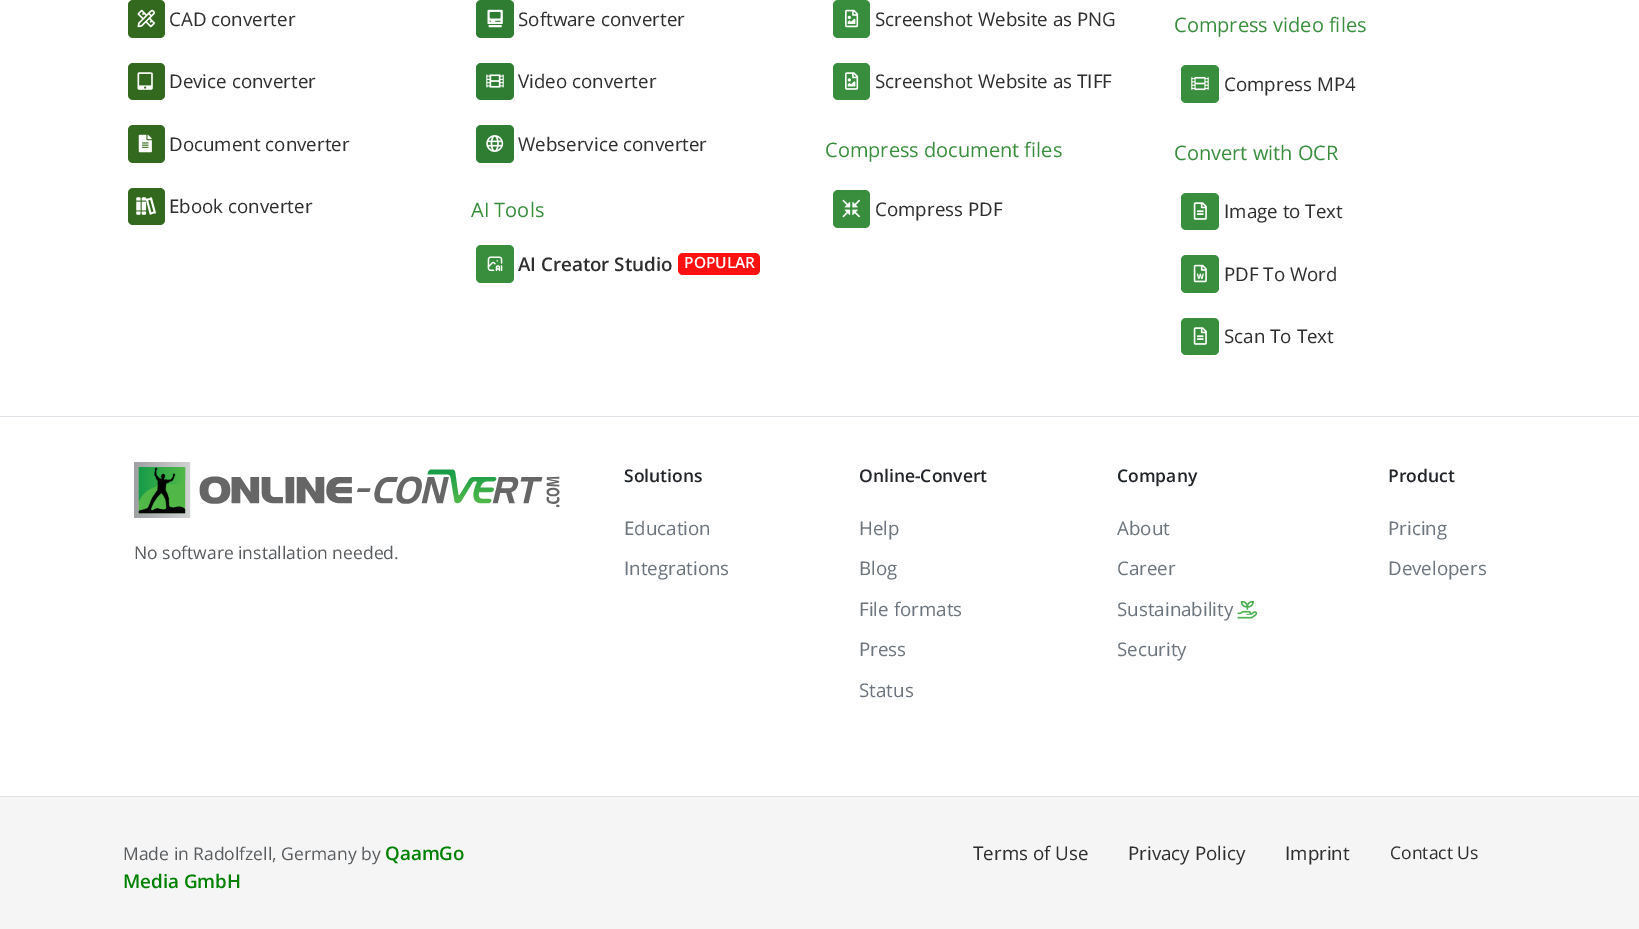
%!PS
<< /PageSize [1639 929] >> setpagedevice
/fl/fill load def
/co { dup -16 bitshift 255 div exch dup -8 bitshift 255 and 255 div exch 255 and 255 div setrgbcolor } def
/fn { [ exch dup neg 0 0 3 -1 roll 0 0 ] selectfont } def
/tx { co fn moveto show } def
/bx { co rectfill } def
/rr { 5 dict begin { /r /h /w /y /x } { exch def } forall
  x r add y moveto x w add y 2 copy h add r arct x w add y h add x 1 index r arct
  x y h add x y r arct x y 2 copy exch w add exch r arct closepath end } def
/im { 5 dict begin { /h /w /y /x /name } { exch def } forall
  gsave x y translate w h scale
  w h 8 [w 0 0 h 0 0] name (r) file false 3 colorimage grestore end } def
0 929 translate 1 -1 scale
4 setmiterlimit
0 0 1639 929 16#F5F5F5 bx
0 0 1639 416 16#FFFFFF bx
16#33691E co
128 0 37 38 5 rr fl
(media/1.raw) 137 9 18 19 im
128 63 37 37 5 rr fl
(media/2.raw) 137 72 16 18 im
128 125 37 38 5 rr fl
(media/3.raw) 138 134 14 19 im
128 188 37 37 5 rr fl
(media/4.raw) 136 197 20 18 im
16#2E7D32 co
476 0 38 38 5 rr fl
(media/5.raw) 487 9 16 19 im
476 63 38 37 5 rr fl
(media/6.raw) 486 74 18 14 im
476 125 38 38 5 rr fl
(media/7.raw) 486 135 18 17 im
16#388E3C co
476 245 38 38 5 rr fl
(media/8.raw) 487 256 16 16 im
16#FF1111 co
678 253 82 22 5 rr fl
16#388E3C co
833 0 37 38 5 rr fl
(media/9.raw) 845 9 14 19 im
833 63 37 37 5 rr fl
(media/10.raw) 845 72 14 18 im
833 190 37 38 5 rr fl
(media/11.raw) 842 199 18 19 im
1181 65 38 38 5 rr fl
(media/12.raw) 1191 76 18 15 im
1181 193 38 37 5 rr fl
(media/13.raw) 1193 202 14 18 im
1181 255 38 38 5 rr fl
(media/14.raw) 1193 264 14 19 im
1181 318 38 37 5 rr fl
(media/13.raw) 1193 327 14 18 im
0 417 1639 379 16#FFFFFF bx
0 416 1639 1 16#DEE2E6 bx
(media/15.raw) 134 462 426 56 im
(media/16.raw) 1237 601 21 18 im
0 796 1639 1 16#DEE2E6 bx
(CAD converter) 169 26 /OpenSans-Regular 18.75 16#2E2E2E tx
(Device converter) 169 88 /OpenSans-Regular 18.75 16#2E2E2E tx
(Document converter) 169 151 /OpenSans-Regular 18.75 16#2E2E2E tx
(Ebook converter) 169 213 /OpenSans-Regular 18.75 16#2E2E2E tx
(Software converter) 518 26 /OpenSans-Regular 18.75 16#2E2E2E tx
(Video converter) 518 88 /OpenSans-Regular 18.75 16#2E2E2E tx
(Webservice converter) 518 151 /OpenSans-Regular 18.75 16#2E2E2E tx
(AI Tools) 471 217 /OpenSans-Regular 20 16#388E3C tx
(AI Creator Studio) 518 271 /OpenSans-SemiBold 18.75 16#2E2E2E tx
(POPULAR) 684 268 /OpenSans-SemiBold 15.5 16#FFFFFF tx
(Screenshot Website as PNG) 875 26 /OpenSans-Regular 18.75 16#2E2E2E tx
(Screenshot Website as TIFF) 875 88 /OpenSans-Regular 18.75 16#2E2E2E tx
(Compress document files) 825 157 /OpenSans-Regular 20 16#388E3C tx
(Compress PDF) 875 216 /OpenSans-Regular 18.75 16#2E2E2E tx
(Compress video files) 1174 32 /OpenSans-Regular 20 16#388E3C tx
(Compress MP4) 1224 91 /OpenSans-Regular 18.75 16#2E2E2E tx
(Convert with OCR) 1174 160 /OpenSans-Regular 20 16#388E3C tx
(Image to Text) 1224 218 /OpenSans-Regular 18.75 16#2E2E2E tx
(PDF To Word) 1224 281 /OpenSans-Regular 18.75 16#2E2E2E tx
(Scan To Text) 1224 343 /OpenSans-Regular 18.75 16#2E2E2E tx
(No software installation needed.) 134 559 /OpenSans-Regular 17.5 16#595C5F tx
(Solutions) 624 482 /OpenSans-SemiBold 17.5 16#212529 tx
(Education) 624 535 /OpenSans-Regular 18.75 16#6C757D tx
(Integrations) 624 575 /OpenSans-Regular 18.75 16#6C757D tx
(Online-Convert) 859 482 /OpenSans-SemiBold 17.5 16#212529 tx
(Help) 859 535 /OpenSans-Regular 18.75 16#6C757D tx
(Blog) 859 575 /OpenSans-Regular 18.75 16#6C757D tx
(File formats) 859 616 /OpenSans-Regular 18.75 16#6C757D tx
(Press) 859 656 /OpenSans-Regular 18.75 16#6C757D tx
(Status) 859 697 /OpenSans-Regular 18.75 16#6C757D tx
(Company) 1117 482 /OpenSans-SemiBold 17.5 16#212529 tx
(About) 1117 535 /OpenSans-Regular 18.75 16#6C757D tx
(Career) 1117 575 /OpenSans-Regular 18.75 16#6C757D tx
(Sustainability) 1117 616 /OpenSans-Regular 18.75 16#6C757D tx
(Security) 1117 656 /OpenSans-Regular 18.75 16#6C757D tx
(Product) 1388 482 /OpenSans-SemiBold 17.5 16#212529 tx
(Pricing) 1388 535 /OpenSans-Regular 18.75 16#6C757D tx
(Developers) 1388 575 /OpenSans-Regular 18.75 16#6C757D tx
(Made in Radolfzell, Germany by) 123 860 /OpenSans-Regular 17.5 16#595C5F tx
(QaamGo) 385 860 /OpenSans-SemiBold 18.75 16#008000 tx
(Media GmbH) 123 888 /OpenSans-SemiBold 18.75 16#008000 tx
(Terms of Use) 973 860 /OpenSans-Regular 18.75 16#2E2E2E tx
(Privacy Policy) 1128 860 /OpenSans-Regular 18.75 16#2E2E2E tx
(Imprint) 1285 860 /OpenSans-Regular 18.75 16#2E2E2E tx
(Contact Us) 1390 859 /OpenSans-Regular 17.5 16#2E2E2E tx
showpage
